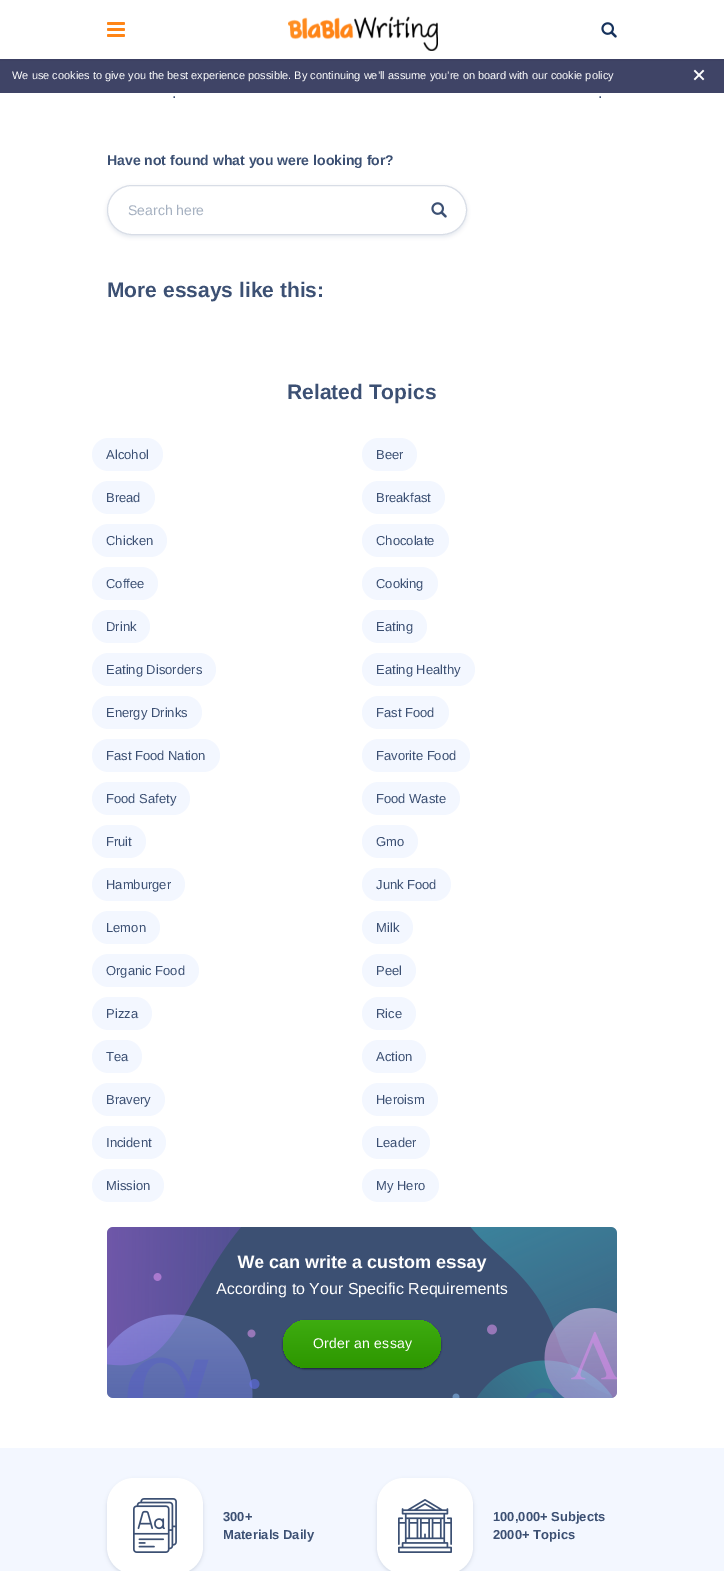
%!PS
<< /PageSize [724 1571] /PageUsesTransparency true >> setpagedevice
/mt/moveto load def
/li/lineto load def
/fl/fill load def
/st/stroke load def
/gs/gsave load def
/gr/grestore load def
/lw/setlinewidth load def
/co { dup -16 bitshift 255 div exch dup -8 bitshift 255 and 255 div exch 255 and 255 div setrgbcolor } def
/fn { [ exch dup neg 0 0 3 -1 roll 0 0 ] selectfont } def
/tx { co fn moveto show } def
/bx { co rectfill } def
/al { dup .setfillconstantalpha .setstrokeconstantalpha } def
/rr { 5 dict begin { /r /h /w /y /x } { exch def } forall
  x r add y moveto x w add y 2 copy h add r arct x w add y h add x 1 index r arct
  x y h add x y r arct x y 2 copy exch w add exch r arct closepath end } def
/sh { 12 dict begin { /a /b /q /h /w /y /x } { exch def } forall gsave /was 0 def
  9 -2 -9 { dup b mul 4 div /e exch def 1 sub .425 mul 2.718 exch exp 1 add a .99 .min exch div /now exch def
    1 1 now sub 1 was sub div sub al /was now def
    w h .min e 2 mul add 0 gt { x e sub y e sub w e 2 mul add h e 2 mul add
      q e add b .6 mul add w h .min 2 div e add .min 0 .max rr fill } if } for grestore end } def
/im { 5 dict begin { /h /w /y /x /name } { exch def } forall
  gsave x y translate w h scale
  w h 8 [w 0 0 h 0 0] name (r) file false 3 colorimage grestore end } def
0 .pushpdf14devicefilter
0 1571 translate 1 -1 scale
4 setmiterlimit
0 0 724 1571 16#FFFFFF bx
0.95 al
0 59 724 34 16#353A5E bx
1 al
16#1E2030 co
-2 -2 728 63 0 1 .1 sh
0 0 724 59 16#FFFFFF bx
16#FF8516 co
107 22 18 3 1.5 rr fl
107 28 18 3 1.5 rr fl
107 34 18 3 1.5 rr fl
(media/1.raw) 288 16 150 35 im
(media/2.raw) 601 22 16 16 im
16#FFFFFF co
1.5 lw
2 setlinecap
703 71 mt 695 79 li 703 79 mt 695 71 li st
16#C7D2DE co
107 187 360 50 25 2 .45 sh
16#FFFFFF co
107.5 185.5 359 49 24.5 rr gs fl gr
16#D8DDE6 co
1 lw
0 setlinecap
st
(media/3.raw) 431 202 16 16 im
16#F3F7FF co
92 438 71 33 16.5 rr fl
362 438 55 33 16.5 rr fl
92 481 63 33 16.5 rr fl
362 481 83 33 16.5 rr fl
92 524 75 33 16.5 rr fl
362 524 87 33 16.5 rr fl
92 567 66 33 16.5 rr fl
362 567 76 33 16.5 rr fl
92 610 58 33 16.5 rr fl
362 610 65 33 16.5 rr fl
92 653 124 33 16.5 rr fl
362 653 113 33 16.5 rr fl
92 696 110 33 16.5 rr fl
362 696 87 33 16.5 rr fl
92 739 128 33 16.5 rr fl
362 739 108 33 16.5 rr fl
92 782 98 33 16.5 rr fl
362 782 98 33 16.5 rr fl
92 825 54 33 16.5 rr fl
362 825 56 33 16.5 rr fl
92 868 93 33 16.5 rr fl
362 868 89 33 16.5 rr fl
92 911 68 33 16.5 rr fl
362 911 51 33 16.5 rr fl
92 954 107 33 16.5 rr fl
362 954 54 33 16.5 rr fl
92 997 60 33 16.5 rr fl
362 997 54 33 16.5 rr fl
92 1040 50 33 16.5 rr fl
362 1040 64 33 16.5 rr fl
92 1083 73 33 16.5 rr fl
362 1083 76 33 16.5 rr fl
92 1126 74 33 16.5 rr fl
362 1126 68 33 16.5 rr fl
92 1169 72 33 16.5 rr fl
362 1169 77 33 16.5 rr fl
16#3C5073 co
107 1227 510 171 6 rr fl
16#1A1D38 co
283 1321 158 48 24 1 1 sh
gs 283 1320 158 48 24 rr clip newpath
<< /ShadingType 2 /ColorSpace /DeviceRGB /Coords [362 1368 362 1320] /Extend [true true] /Function << /FunctionType 2 /Domain [0 1] /C0 [.176 .592 0] /C1 [.243 .675 .063] /N 1 >> >> shfill gr
0 1448 724 123 16#F3F7FF bx
16#A8B7C7 co
107 1480 96 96 27 2 .5 sh
16#FFFFFF co
107 1478 96 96 27 rr fl
(media/6.raw) 133 1498 44 55 im
16#A8B7C7 co
377 1480 96 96 27 2 .5 sh
16#FFFFFF co
377 1478 96 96 27 rr fl
(media/7.raw) 398 1499 54 54 im
(We use cookies to give you the best experience possible. By continuing we’ll assume you’re on board with our cookie policy) 12 79 /LiberationSans-Regular 11 16#FFFFFF tx
(.) 172 98 /LiberationSans-Regular 16 16#3C5073 tx
(.) 598 98 /LiberationSans-Regular 16 16#3C5073 tx
(Have not found what you were looking for?) 107 165 /LiberationSans-Bold 14 16#3C5073 tx
(Search here) 128 215 /LiberationSans-Regular 14 16#A5B0C0 tx
(More essays like this:) 107 297 /LiberationSans-Bold 21 16#3C5073 tx
(Related Topics) 287 399 /LiberationSans-Bold 21 16#3C5073 tx
(Alcohol) 106 459 /LiberationSans-Regular 13 16#3C5073 tx
(Beer) 376 459 /LiberationSans-Regular 13 16#3C5073 tx
(Bread) 106 502 /LiberationSans-Regular 13 16#3C5073 tx
(Breakfast) 376 502 /LiberationSans-Regular 13 16#3C5073 tx
(Chicken) 106 545 /LiberationSans-Regular 13 16#3C5073 tx
(Chocolate) 376 545 /LiberationSans-Regular 13 16#3C5073 tx
(Coffee) 106 588 /LiberationSans-Regular 13 16#3C5073 tx
(Cooking) 376 588 /LiberationSans-Regular 13 16#3C5073 tx
(Drink) 106 631 /LiberationSans-Regular 13 16#3C5073 tx
(Eating) 376 631 /LiberationSans-Regular 13 16#3C5073 tx
(Eating Disorders) 106 674 /LiberationSans-Regular 13 16#3C5073 tx
(Eating Healthy) 376 674 /LiberationSans-Regular 13 16#3C5073 tx
(Energy Drinks) 106 717 /LiberationSans-Regular 13 16#3C5073 tx
(Fast Food) 376 717 /LiberationSans-Regular 13 16#3C5073 tx
(Fast Food Nation) 106 760 /LiberationSans-Regular 13 16#3C5073 tx
(Favorite Food) 376 760 /LiberationSans-Regular 13 16#3C5073 tx
(Food Safety) 106 803 /LiberationSans-Regular 13 16#3C5073 tx
(Food Waste) 376 803 /LiberationSans-Regular 13 16#3C5073 tx
(Fruit) 106 846 /LiberationSans-Regular 13 16#3C5073 tx
(Gmo) 376 846 /LiberationSans-Regular 13 16#3C5073 tx
(Hamburger) 106 889 /LiberationSans-Regular 13 16#3C5073 tx
(Junk Food) 376 889 /LiberationSans-Regular 13 16#3C5073 tx
(Lemon) 106 932 /LiberationSans-Regular 13 16#3C5073 tx
(Milk) 376 932 /LiberationSans-Regular 13 16#3C5073 tx
(Organic Food) 106 975 /LiberationSans-Regular 13 16#3C5073 tx
(Peel) 376 975 /LiberationSans-Regular 13 16#3C5073 tx
(Pizza) 106 1018 /LiberationSans-Regular 13 16#3C5073 tx
(Rice) 376 1018 /LiberationSans-Regular 13 16#3C5073 tx
(Tea) 106 1061 /LiberationSans-Regular 13 16#3C5073 tx
(Action) 376 1061 /LiberationSans-Regular 13 16#3C5073 tx
(Bravery) 106 1104 /LiberationSans-Regular 13 16#3C5073 tx
(Heroism) 376 1104 /LiberationSans-Regular 13 16#3C5073 tx
(Incident) 106 1147 /LiberationSans-Regular 13 16#3C5073 tx
(Leader) 376 1147 /LiberationSans-Regular 13 16#3C5073 tx
(Mission) 106 1190 /LiberationSans-Regular 13 16#3C5073 tx
(My Hero) 376 1190 /LiberationSans-Regular 13 16#3C5073 tx
(We can write a custom essay) 237 1268 /LiberationSans-Bold 18 16#FFFFFF tx
(According to Your Specific Requirements) 216 1294 /LiberationSans-Regular 16 16#FFFFFF tx
(media/5.raw) 452 1227 165 171 im
(media/4.raw) 107 1227 153 171 im
/LiberationSans-Regular 14 fn
313 1348 mt .25 0 (Order an essay) ashow
(300+) 223 1521 /LiberationSans-Bold 13 16#3C5073 tx
(Materials Daily) 223 1539 /LiberationSans-Bold 13 16#3C5073 tx
(100,000+ Subjects) 493 1521 /LiberationSans-Bold 13 16#3C5073 tx
(2000+ Topics) 493 1539 /LiberationSans-Bold 13 16#3C5073 tx
.poppdf14devicefilter showpage
